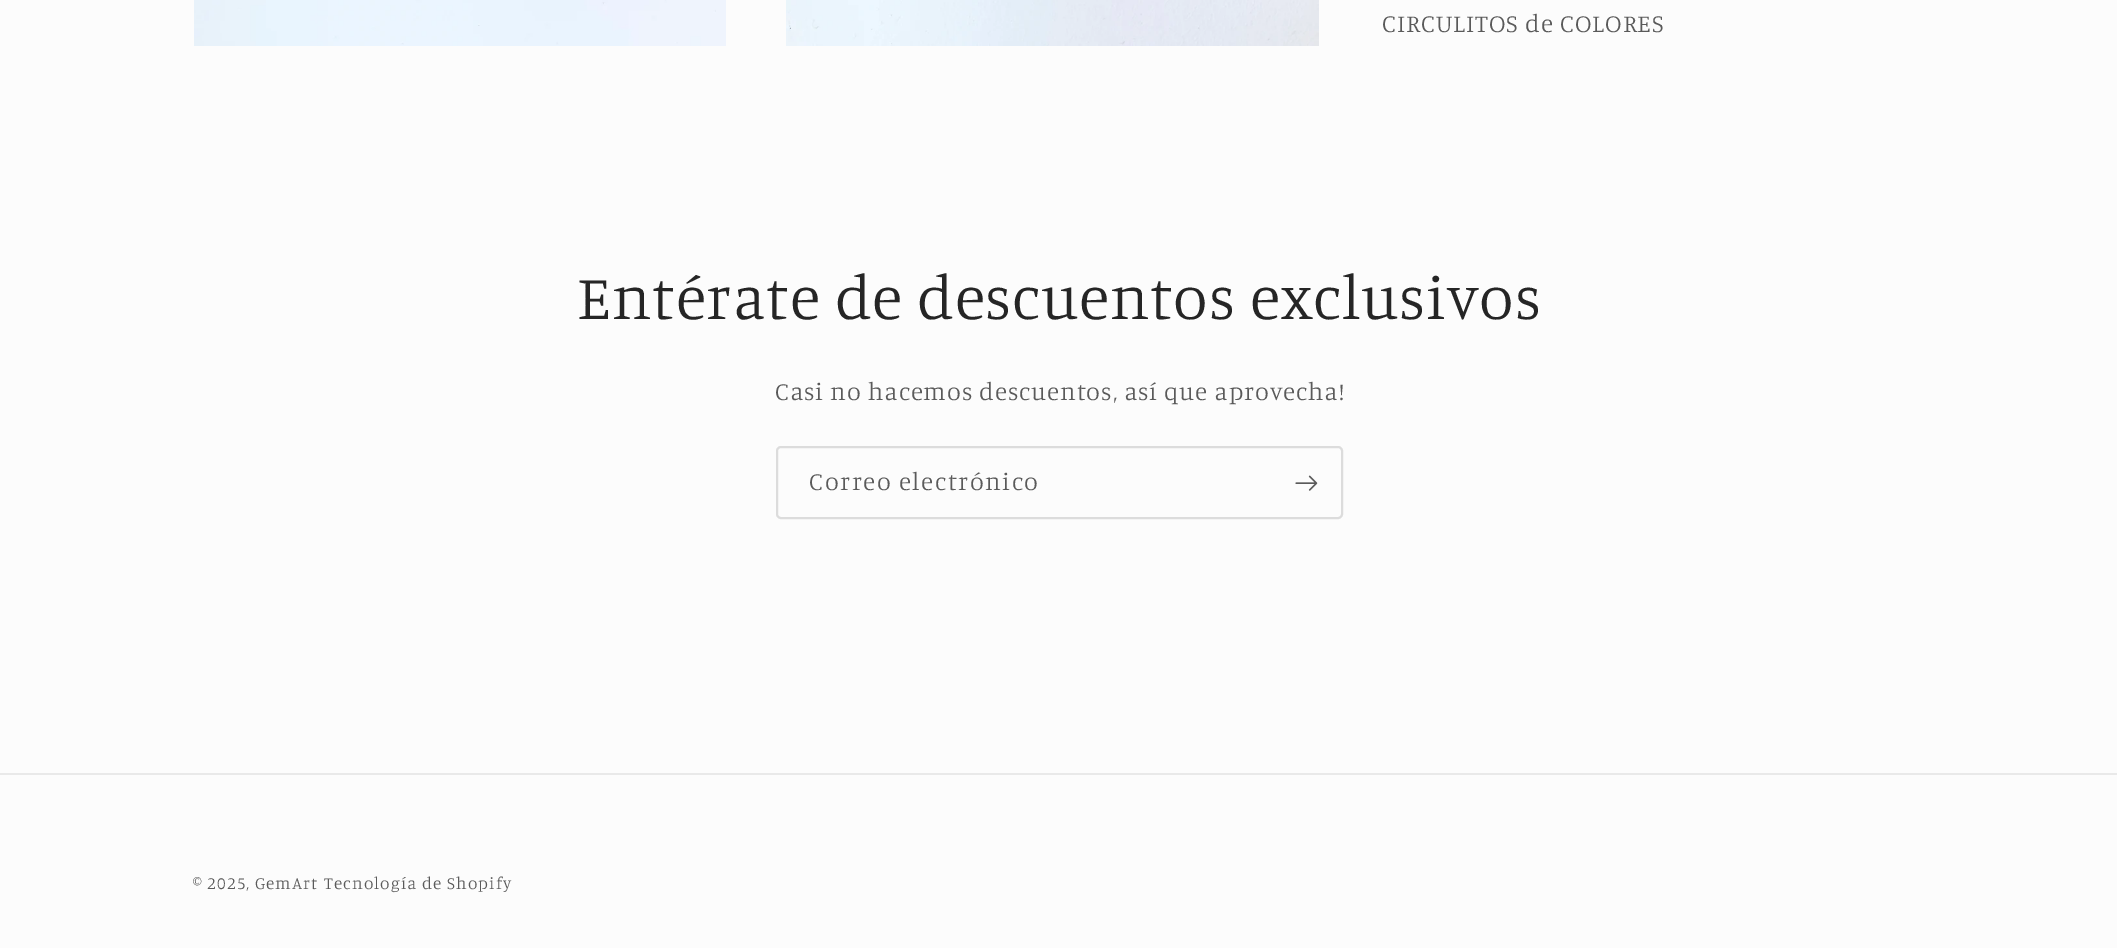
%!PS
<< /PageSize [2117 948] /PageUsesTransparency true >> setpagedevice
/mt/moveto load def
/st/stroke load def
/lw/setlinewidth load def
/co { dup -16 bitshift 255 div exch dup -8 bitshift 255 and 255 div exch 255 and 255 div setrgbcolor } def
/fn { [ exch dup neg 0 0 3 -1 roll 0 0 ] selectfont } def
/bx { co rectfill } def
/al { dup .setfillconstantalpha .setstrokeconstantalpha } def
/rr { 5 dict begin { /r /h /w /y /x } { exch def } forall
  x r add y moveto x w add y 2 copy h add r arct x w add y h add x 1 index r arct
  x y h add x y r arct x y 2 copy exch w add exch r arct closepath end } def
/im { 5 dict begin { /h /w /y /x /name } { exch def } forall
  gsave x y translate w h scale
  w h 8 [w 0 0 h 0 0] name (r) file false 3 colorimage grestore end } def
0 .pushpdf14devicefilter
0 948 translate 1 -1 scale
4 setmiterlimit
0 0 2117 948 16#FCFCFC bx
(media/1.raw) 194 0 532 46 im
(media/2.raw) 786 0 533 46 im
0.15 al
16#252525 co
2 lw
777 447 565 71 4 rr st
1 al
(media/3.raw) 1295 475 23 16 im
0 773 2117 2 16#E9E9E9 bx
/Manuale-Light 25.2 fn
16#5A5A5A co
1382 32 mt .95 0 (CIRCULITOS de COLORES) ashow
/Manuale-Light 63 fn
16#252525 co
577 319 mt .95 0 (Entérate de descuentos exclusivos) ashow
/Manuale-Light 25.2 fn
16#5A5A5A co
775 400 mt .95 0 (Casi no hacemos descuentos, así que aprovecha!) ashow
809 490 mt 1.6 0 (Correo electrónico) ashow
/Manuale-Light 17.25 fn
193 889 mt 1.1 0 (© 2025, GemArt) ashow
324 889 mt 1.1 0 (Tecnología de Shopify) ashow
.poppdf14devicefilter showpage
